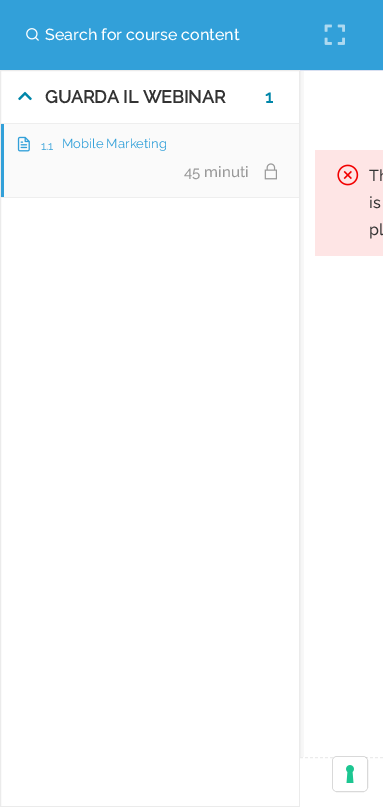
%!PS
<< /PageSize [383 807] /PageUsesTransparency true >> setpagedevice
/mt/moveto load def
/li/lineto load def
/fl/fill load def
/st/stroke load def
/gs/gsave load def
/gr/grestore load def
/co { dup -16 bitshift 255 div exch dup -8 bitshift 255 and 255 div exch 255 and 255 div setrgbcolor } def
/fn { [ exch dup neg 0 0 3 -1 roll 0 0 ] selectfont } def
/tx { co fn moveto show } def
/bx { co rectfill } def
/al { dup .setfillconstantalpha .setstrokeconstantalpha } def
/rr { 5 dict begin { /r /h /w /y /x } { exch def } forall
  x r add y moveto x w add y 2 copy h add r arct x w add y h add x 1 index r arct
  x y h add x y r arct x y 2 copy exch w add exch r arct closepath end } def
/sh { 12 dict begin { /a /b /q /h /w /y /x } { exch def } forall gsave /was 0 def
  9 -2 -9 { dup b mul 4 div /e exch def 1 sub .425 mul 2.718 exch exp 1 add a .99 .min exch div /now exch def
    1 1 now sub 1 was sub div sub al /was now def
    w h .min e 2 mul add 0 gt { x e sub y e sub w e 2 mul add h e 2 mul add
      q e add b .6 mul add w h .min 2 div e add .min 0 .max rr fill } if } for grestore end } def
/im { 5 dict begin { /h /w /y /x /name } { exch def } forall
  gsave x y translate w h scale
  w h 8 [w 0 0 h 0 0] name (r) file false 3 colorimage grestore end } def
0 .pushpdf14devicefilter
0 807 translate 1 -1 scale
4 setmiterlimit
0 0 383 807 16#FFFFFF bx
315 150 68 106 16#FEE5E5 bx
gs
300 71 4 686 rectclip
16#000000 co
0 2 300 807 0 5 .1 sh
gr
0 0 383 70 16#32A0D9 bx
(media/1.raw) 26 28 13 13 im
16#EBEBEB co
.5 70.5 299 736 rectstroke
1 197 298 1 16#EEEEEE bx
(media/2.raw) 18 91 14 10 im
4 124 295 73 16#FAFAFA bx
1 123 298 1 16#EEEEEE bx
1 124 3 73 16#32A0D9 bx
(media/3.raw) 17 136 13 16 im
(media/4.raw) 264 163 13 17 im
300 70 83 1 16#D9E0F1 bx
(media/5.raw) 324 24 21 21 im
(media/6.raw) 337 164 22 22 im
300 757 6 50 16#FFFFFF bx
16#EBEBEB co
[3 2] 0 setdash
300 757.5 mt 383 757.5 li st
0.15 al
16#000000 co
[] 0 setdash
332.5 756.5 35 35 4.5 rr st
1 al
16#FFFFFF co
333 757 34 34 4 rr fl
(media/7.raw) 346 765 8 18 im
(Search for course content) 45 40 /Raleway-Medium 16 16#FFFFFF tx
(GUARDA IL WEBINAR) 45 103 /Raleway-Bold 17.6 16#333333 tx
(1) 265 103 /Raleway-Bold 17.6 16#0086A9 tx
(1.1) 41 150 /Raleway-Regular 12 16#32A0D9 tx
(Mobile Marketing) 62 148 /Raleway-Regular 13 16#32A0D9 tx
(45 minuti) 184 177 /Raleway-Medium 15 16#999999 tx
(Th) 369 181 /Raleway-Medium 16 16#333333 tx
(is) 369 208 /Raleway-Medium 16 16#333333 tx
(pl) 369 235 /Raleway-Medium 16 16#333333 tx
.poppdf14devicefilter showpage
